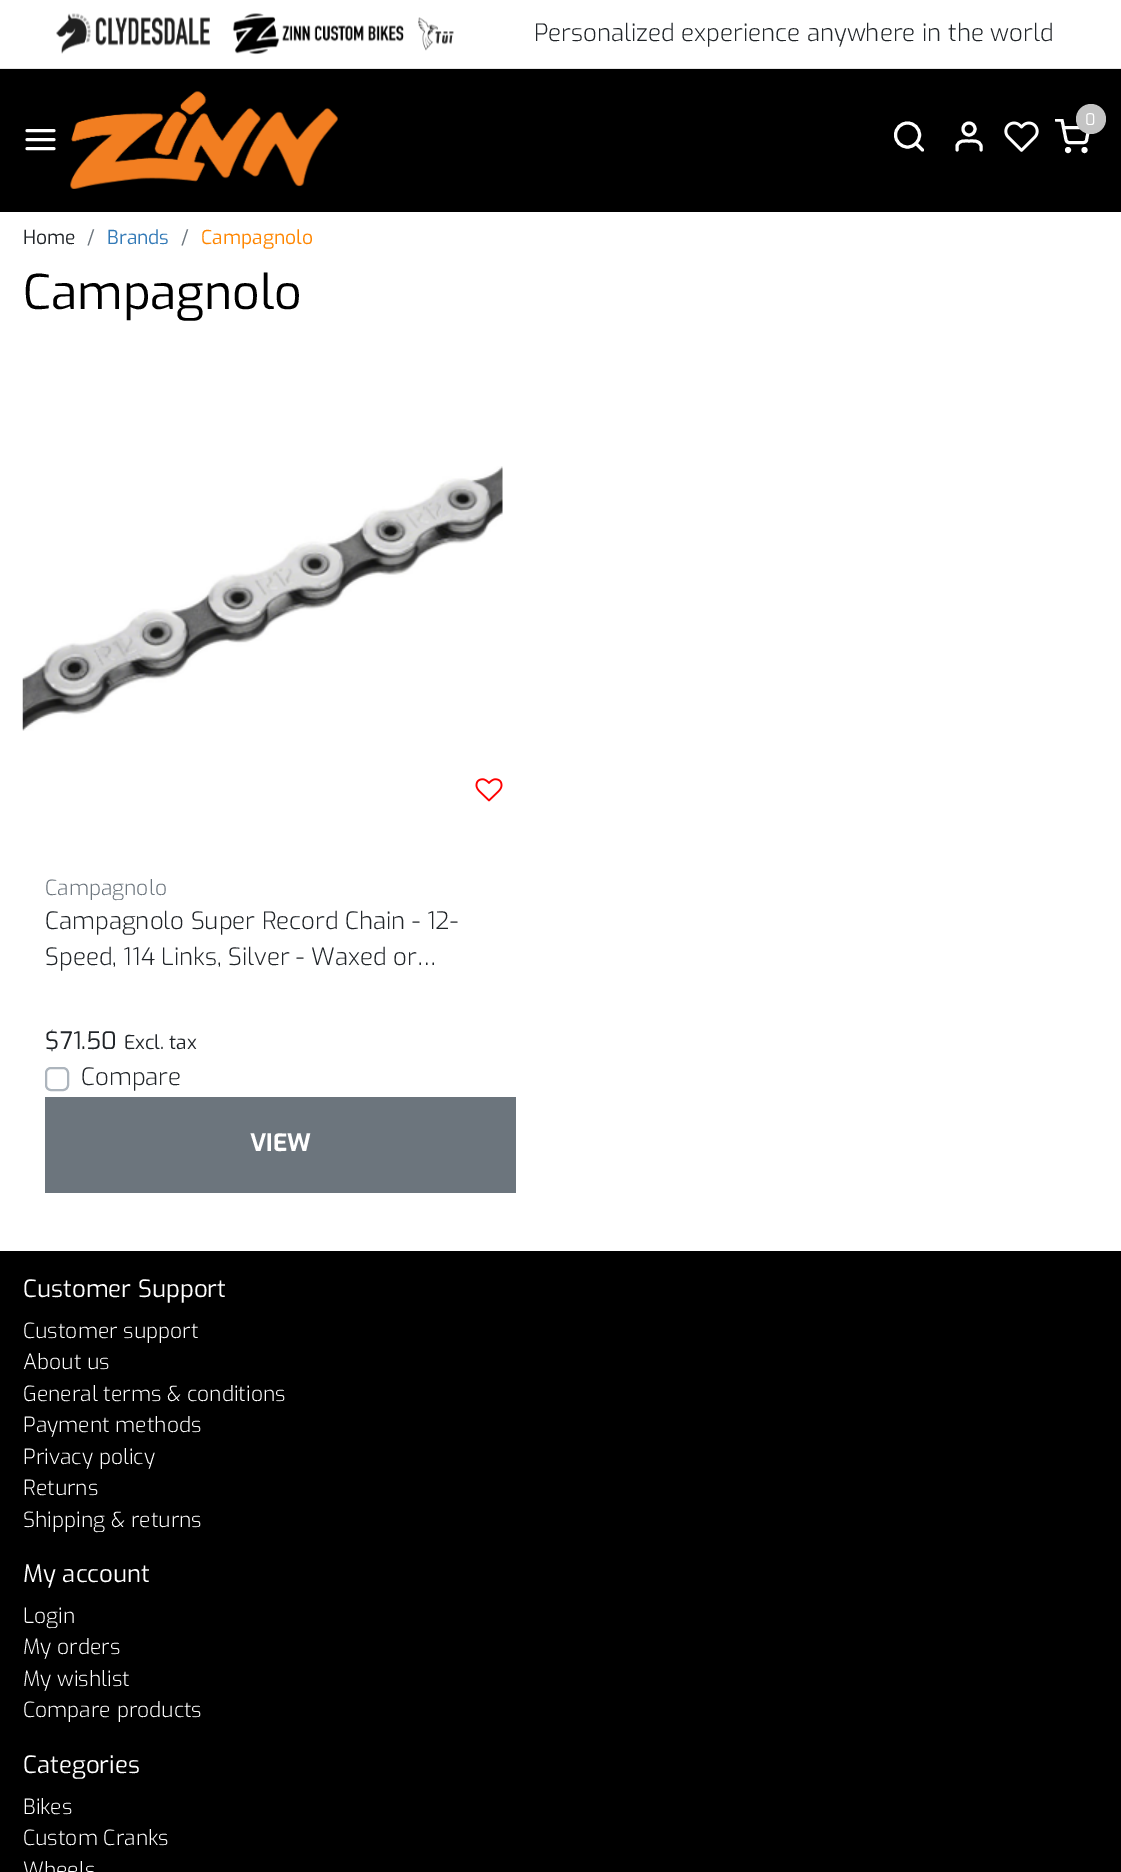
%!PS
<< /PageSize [1121 1872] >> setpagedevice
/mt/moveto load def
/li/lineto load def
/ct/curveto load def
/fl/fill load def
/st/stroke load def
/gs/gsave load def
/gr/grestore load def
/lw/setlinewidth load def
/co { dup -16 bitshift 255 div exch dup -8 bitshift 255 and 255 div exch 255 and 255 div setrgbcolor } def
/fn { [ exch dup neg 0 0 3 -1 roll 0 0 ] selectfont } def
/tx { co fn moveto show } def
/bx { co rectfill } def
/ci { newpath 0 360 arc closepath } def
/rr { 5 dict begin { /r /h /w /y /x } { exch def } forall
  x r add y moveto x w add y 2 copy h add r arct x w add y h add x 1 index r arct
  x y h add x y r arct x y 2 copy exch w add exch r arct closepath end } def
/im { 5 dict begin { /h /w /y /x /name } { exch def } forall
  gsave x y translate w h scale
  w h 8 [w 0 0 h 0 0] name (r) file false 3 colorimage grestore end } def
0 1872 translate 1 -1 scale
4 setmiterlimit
0 0 1121 1872 16#FFFFFF bx
0 68 1121 1 16#E6E6E6 bx
(media/1.raw) 56 13 154 41 im
(media/2.raw) 232 13 172 42 im
(media/3.raw) 418 17 36 34 im
0 69 1121 143 16#000000 bx
16#FFFFFF co
3 lw
1 setlinecap
1 setlinejoin
27 139.5 mt 54 139.5 li 27 130.5 mt 54 130.5 li 27 148.5 mt 54 148.5 li st
(media/4.raw) 70 91 268 98 im
gs
1055 119 36 36 rectclip
1056 120 mt 1062 120 li 1066 140 li 1066.5 141.5 1067.5 142.5 1069 142.5 ct 1083.5 142.5 li 1085 142.5 1086.5 141.5 1086.5 140 ct 1089 127.5 li 1063.5 127.5 li st
gr
16#C4C4C4 co
1091 119 15 ci fl
16#FFFFFF co
0 setlinecap
0 setlinejoin
1068 150 1.5 ci st
1084.5 150 1.5 ci st
907.5 135 12 ci st
1 setlinecap
1 setlinejoin
922.5 150 mt 916 143.5 li st
981 150 mt 981 146 li 979.5 140 973.5 141 969 141 ct 964.5 141 958.5 140 957 146 ct 957 150 li st
0 setlinecap
0 setlinejoin
969 129 6 ci st
(media/5.raw) 1004 121 35 31 im
(media/6.raw) 22 466 481 265 im
(media/7.raw) 475 778 28 24 im
16#ADB5BD co
2 lw
46 1068 22 22 5 rr st
45 1097 471 96 16#6C757D bx
0 1251 1121 621 16#000000 bx
(Personalized experience anywhere in the world) 534 41 /Exo-Light 24 16#212529 tx
(0) 1085 125 /Exo-Regular 16 16#FFFFFF tx
(Home) 23 244 /Exo-Regular 19.25 16#212529 tx
(/) 87 244 /Exo-Regular 19.25 16#6C757D tx
(Brands) 107 244 /Exo-Regular 19.25 16#337AB7 tx
(/) 181 244 /Exo-Regular 19.25 16#6C757D tx
(Campagnolo) 201 244 /Exo-Regular 19.25 16#FF8600 tx
(Campagnolo) 23 309 /Exo-Regular 48 16#000000 tx
(Campagnolo) 45 895 /Exo-Light 21 16#6C757D tx
(Campagnolo Super Record Chain - 12-) 45 929 /Exo-Light 24 16#212529 tx
(Speed, 114 Links, Silver - Waxed or…) 45 965 /Exo-Light 24 16#212529 tx
($71.50) 45 1049 /Exo-Regular 24 16#212529 tx
(Excl. tax) 124 1049 /Exo-Regular 19.25 16#212529 tx
(Compare) 81 1085 /Exo-Light 24 16#212529 tx
(VIEW) 250 1151 /Exo-Bold 24 16#FFFFFF tx
(Customer Support) 23 1297 /Exo-Regular 24 16#FFFFFF tx
(Customer support) 23 1338 /Exo-Light 21 16#FFFFFF tx
(About us) 23 1369 /Exo-Light 21 16#FFFFFF tx
(General terms & conditions) 23 1401 /Exo-Light 21 16#FFFFFF tx
(Payment methods) 23 1432 /Exo-Light 21 16#FFFFFF tx
(Privacy policy) 23 1464 /Exo-Light 21 16#FFFFFF tx
(Returns) 23 1495 /Exo-Light 21 16#FFFFFF tx
(Shipping & returns) 23 1527 /Exo-Light 21 16#FFFFFF tx
(My account) 23 1582 /Exo-Regular 24 16#FFFFFF tx
(Login) 23 1623 /Exo-Light 21 16#FFFFFF tx
(My orders) 23 1654 /Exo-Light 21 16#FFFFFF tx
(My wishlist) 23 1686 /Exo-Light 21 16#FFFFFF tx
(Compare products) 23 1717 /Exo-Light 21 16#FFFFFF tx
(Categories) 23 1773 /Exo-Regular 24 16#FFFFFF tx
(Bikes) 23 1814 /Exo-Light 21 16#FFFFFF tx
(Custom Cranks) 23 1845 /Exo-Light 21 16#FFFFFF tx
(Wheels) 23 1877 /Exo-Light 21 16#FFFFFF tx
showpage
